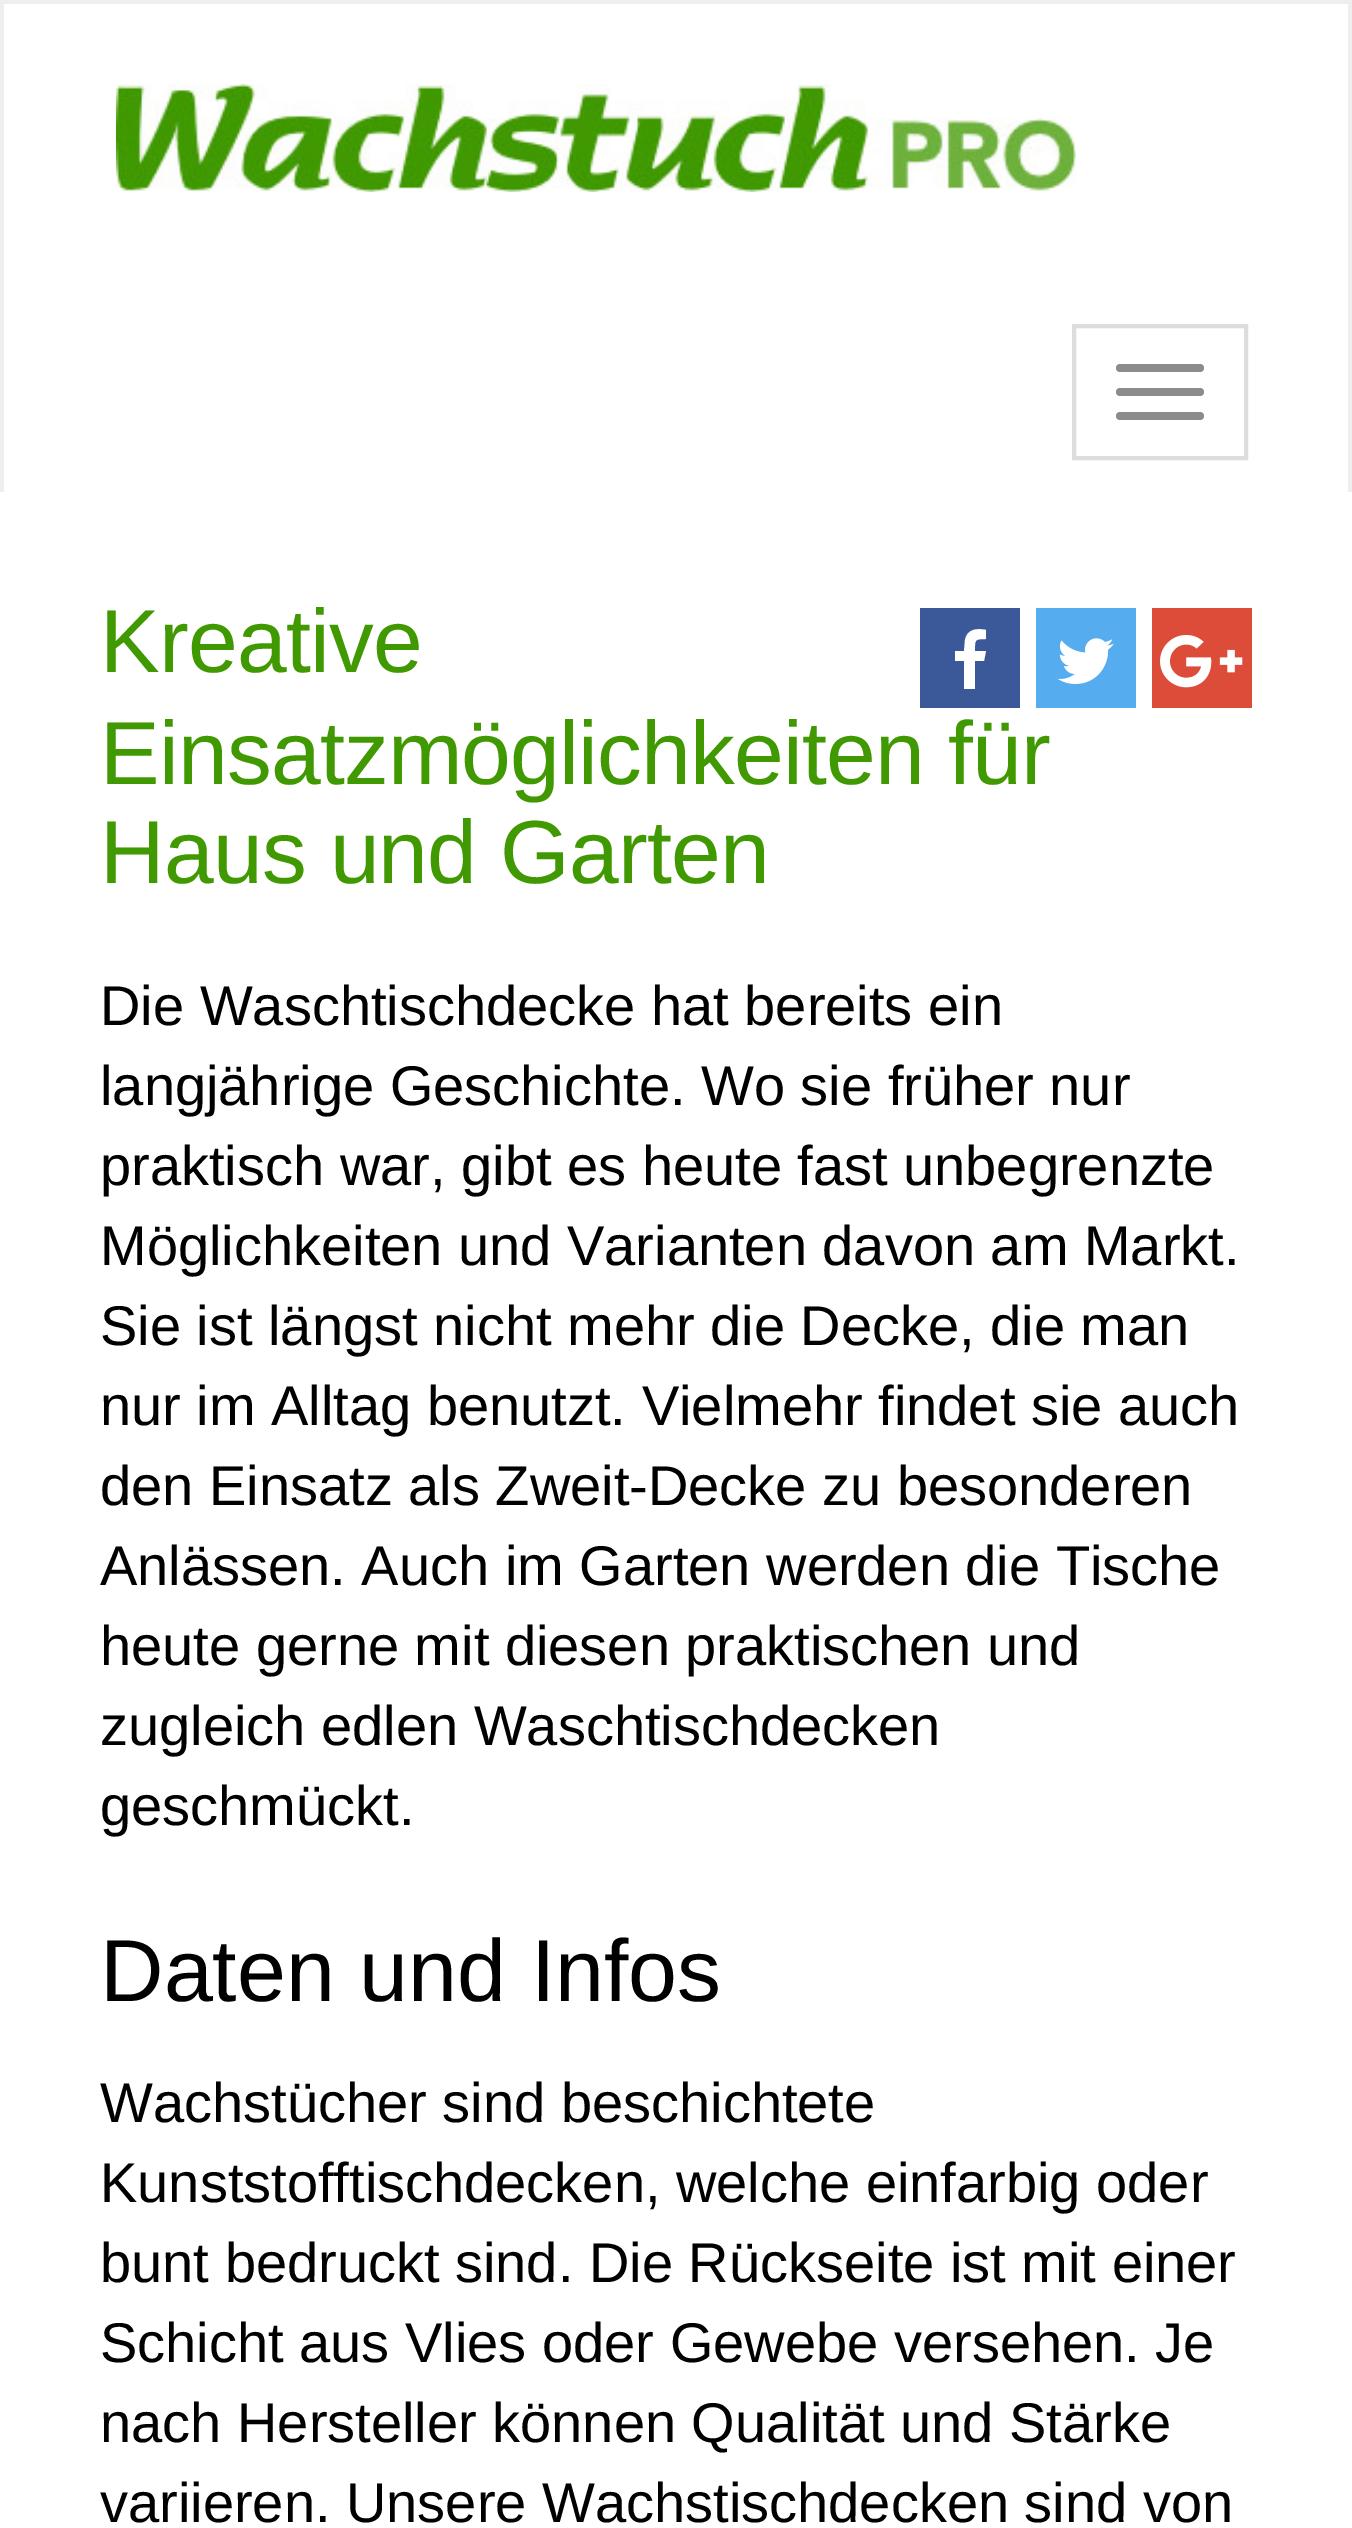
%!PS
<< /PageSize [1352 2528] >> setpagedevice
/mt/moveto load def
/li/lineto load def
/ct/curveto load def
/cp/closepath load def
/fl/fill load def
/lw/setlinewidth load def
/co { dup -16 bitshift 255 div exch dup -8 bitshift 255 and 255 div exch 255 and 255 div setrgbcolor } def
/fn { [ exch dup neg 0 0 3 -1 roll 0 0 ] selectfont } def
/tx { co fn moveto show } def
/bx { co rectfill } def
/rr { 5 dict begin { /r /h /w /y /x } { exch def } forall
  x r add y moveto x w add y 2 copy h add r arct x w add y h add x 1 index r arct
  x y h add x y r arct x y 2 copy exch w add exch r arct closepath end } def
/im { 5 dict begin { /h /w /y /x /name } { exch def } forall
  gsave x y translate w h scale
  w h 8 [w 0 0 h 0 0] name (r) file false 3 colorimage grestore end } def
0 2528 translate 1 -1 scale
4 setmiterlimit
0 0 1352 2528 16#FFFFFF bx
0 0 1352 4 16#EEEEEE bx
1348 0 4 492 16#EEEEEE bx
0 0 4 492 16#EEEEEE bx
(media/1.raw) 116 84 960 108 im
16#DDDDDD co
4 lw
1074 326 172 132 rectstroke
16#8C8C8C co
1116 364 88 8 4 rr fl
1116 388 88 8 4 rr fl
1116 412 88 8 4 rr fl
920 608 100 100 16#3B5998 bx
16#FFFFFF co
986 630 mt 977 628 967 629 965 640 ct 964 651 li 955 651 li 955 661 li 964 661 li 964 689 li 975 689 li 975 661 li 984 661 li 986 651 li 975 651 li 975 640 974 639 986 639 ct cp fl
1036 608 100 100 16#55ACEE bx
(media/2.raw) 1057 638 57 46 im
1152 608 100 100 16#DD4B39 bx
(media/3.raw) 1160 635 83 53 im
/LiberationSans-Regular 89.6 fn
16#409900 co
100 672 mt -.9 0 (Kreative) ashow
100 784 mt -.9 0 (Einsatzmöglichkeiten für) ashow
100 883 mt -.9 0 (Haus und Garten) ashow
(Die Waschtischdecke hat bereits ein) 100 1025 /LiberationSans-Regular 56 16#000000 tx
(langjährige Geschichte. Wo sie früher nur) 100 1105 /LiberationSans-Regular 56 16#000000 tx
(praktisch war, gibt es heute fast unbegrenzte) 100 1185 /LiberationSans-Regular 56 16#000000 tx
(Möglichkeiten und Varianten davon am Markt.) 100 1265 /LiberationSans-Regular 56 16#000000 tx
(Sie ist längst nicht mehr die Decke, die man) 100 1345 /LiberationSans-Regular 56 16#000000 tx
(nur im Alltag benutzt. Vielmehr findet sie auch) 100 1425 /LiberationSans-Regular 56 16#000000 tx
(den Einsatz als Zweit-Decke zu besonderen) 100 1505 /LiberationSans-Regular 56 16#000000 tx
(Anlässen. Auch im Garten werden die Tische) 100 1585 /LiberationSans-Regular 56 16#000000 tx
(heute gerne mit diesen praktischen und) 100 1665 /LiberationSans-Regular 56 16#000000 tx
(zugleich edlen Waschtischdecken) 100 1745 /LiberationSans-Regular 56 16#000000 tx
(geschmückt.) 100 1825 /LiberationSans-Regular 56 16#000000 tx
(Daten und Infos) 100 2001 /LiberationSans-Regular 88 16#000000 tx
(Wachstücher sind beschichtete) 100 2122 /LiberationSans-Regular 56 16#000000 tx
(Kunststofftischdecken, welche einfarbig oder) 100 2202 /LiberationSans-Regular 56 16#000000 tx
(bunt bedruckt sind. Die Rückseite ist mit einer) 100 2282 /LiberationSans-Regular 56 16#000000 tx
(Schicht aus Vlies oder Gewebe versehen. Je) 100 2362 /LiberationSans-Regular 56 16#000000 tx
(nach Hersteller können Qualität und Stärke) 100 2442 /LiberationSans-Regular 56 16#000000 tx
(variieren. Unsere Wachstischdecken sind von) 100 2522 /LiberationSans-Regular 56 16#000000 tx
showpage
